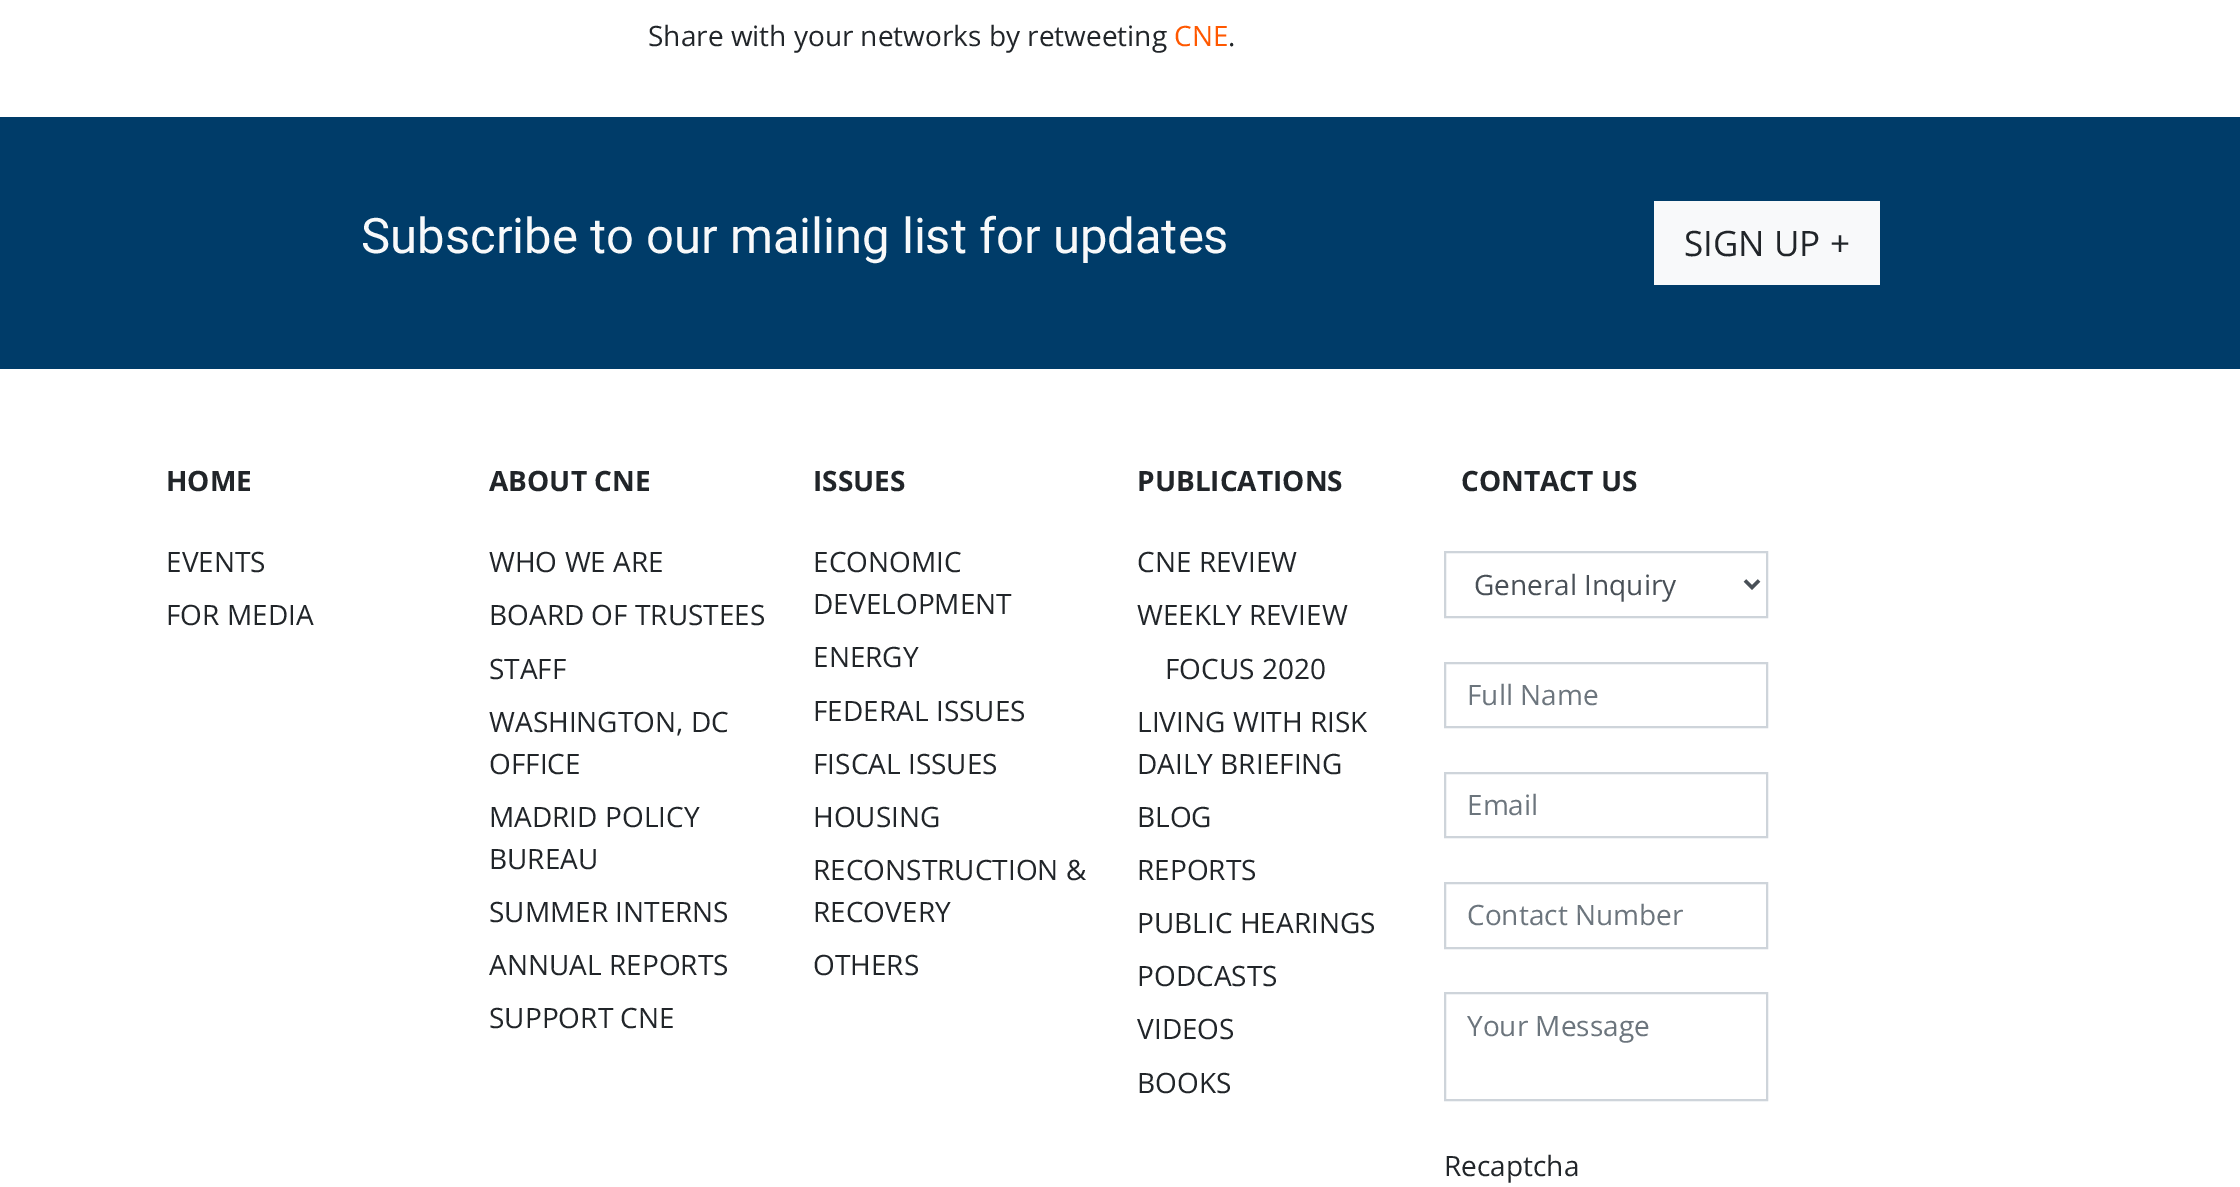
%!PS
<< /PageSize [2240 1187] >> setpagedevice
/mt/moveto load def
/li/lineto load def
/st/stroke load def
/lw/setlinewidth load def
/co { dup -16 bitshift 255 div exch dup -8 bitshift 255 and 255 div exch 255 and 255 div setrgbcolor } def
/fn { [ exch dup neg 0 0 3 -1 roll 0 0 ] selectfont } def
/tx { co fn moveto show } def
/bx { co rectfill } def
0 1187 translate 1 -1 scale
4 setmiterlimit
0 0 2240 1187 16#FFFFFF bx
0 117 2240 252 16#003C69 bx
1654 201 226 84 16#F8F9FA bx
16#CED4DA co
2 lw
1445 552 322 65 rectstroke
16#495057 co
3.5 lw
1745 580.5 mt 1752 587.5 li 1759 580.5 li st
16#CED4DA co
2 lw
1445 663 322 64 rectstroke
1445 773 322 64 rectstroke
1445 883 322 65 rectstroke
1445 993 322 107 rectstroke
(Share with your networks by retweeting) 648 46 /OpenSans-Regular 28 16#212529 tx
(CNE) 1174 46 /OpenSans-Regular 28 16#FF5800 tx
(.) 1228 46 /OpenSans-Regular 28 16#212529 tx
(Subscribe to our mailing list for updates) 361 253 /Roboto-Regular 49 16#F8F9FA tx
(SIGN UP +) 1684 256 /OpenSans-Regular 35 16#212529 tx
(HOME) 166 491 /OpenSans-Bold 28 16#212529 tx
(EVENTS) 166 572 /OpenSans-Regular 28 16#212529 tx
(FOR MEDIA) 166 625 /OpenSans-Regular 28 16#212529 tx
(ABOUT CNE) 489 491 /OpenSans-Bold 28 16#212529 tx
(WHO WE ARE) 489 572 /OpenSans-Regular 28 16#212529 tx
(BOARD OF TRUSTEES) 489 625 /OpenSans-Regular 28 16#212529 tx
(STAFF) 489 679 /OpenSans-Regular 28 16#212529 tx
(WASHINGTON, DC) 489 732 /OpenSans-Regular 28 16#212529 tx
(OFFICE) 489 774 /OpenSans-Regular 28 16#212529 tx
(MADRID POLICY) 489 827 /OpenSans-Regular 28 16#212529 tx
(BUREAU) 489 869 /OpenSans-Regular 28 16#212529 tx
(SUMMER INTERNS) 489 922 /OpenSans-Regular 28 16#212529 tx
(ANNUAL REPORTS) 489 975 /OpenSans-Regular 28 16#212529 tx
(SUPPORT CNE) 489 1028 /OpenSans-Regular 28 16#212529 tx
(ISSUES) 813 491 /OpenSans-Bold 28 16#212529 tx
(ECONOMIC) 813 572 /OpenSans-Regular 28 16#212529 tx
(DEVELOPMENT) 813 614 /OpenSans-Regular 28 16#212529 tx
(ENERGY) 813 667 /OpenSans-Regular 28 16#212529 tx
(FEDERAL ISSUES) 813 721 /OpenSans-Regular 28 16#212529 tx
(FISCAL ISSUES) 813 774 /OpenSans-Regular 28 16#212529 tx
(HOUSING) 813 827 /OpenSans-Regular 28 16#212529 tx
(RECONSTRUCTION &) 813 880 /OpenSans-Regular 28 16#212529 tx
(RECOVERY) 813 922 /OpenSans-Regular 28 16#212529 tx
(OTHERS) 813 975 /OpenSans-Regular 28 16#212529 tx
(PUBLICATIONS) 1137 491 /OpenSans-Bold 28 16#212529 tx
(CNE REVIEW) 1137 572 /OpenSans-Regular 28 16#212529 tx
(WEEKLY REVIEW) 1137 625 /OpenSans-Regular 28 16#212529 tx
(FOCUS 2020) 1165 679 /OpenSans-Regular 28 16#212529 tx
(LIVING WITH RISK) 1137 732 /OpenSans-Regular 28 16#212529 tx
(DAILY BRIEFING) 1137 774 /OpenSans-Regular 28 16#212529 tx
(BLOG) 1137 827 /OpenSans-Regular 28 16#212529 tx
(REPORTS) 1137 880 /OpenSans-Regular 28 16#212529 tx
(PUBLIC HEARINGS) 1137 933 /OpenSans-Regular 28 16#212529 tx
(PODCASTS) 1137 986 /OpenSans-Regular 28 16#212529 tx
(VIDEOS) 1137 1039 /OpenSans-Regular 28 16#212529 tx
(BOOKS) 1137 1093 /OpenSans-Regular 28 16#212529 tx
(CONTACT US) 1461 491 /OpenSans-Bold 28 16#212529 tx
(General Inquiry) 1474 595 /OpenSans-Regular 28 16#495057 tx
(Full Name) 1467 705 /OpenSans-Regular 28 16#6C757D tx
(Email) 1467 815 /OpenSans-Regular 28 16#6C757D tx
(Contact Number) 1467 925 /OpenSans-Regular 28 16#6C757D tx
(Your Message) 1467 1036 /OpenSans-Regular 28 16#6C757D tx
(Recaptcha) 1444 1176 /OpenSans-Regular 28 16#212529 tx
showpage
